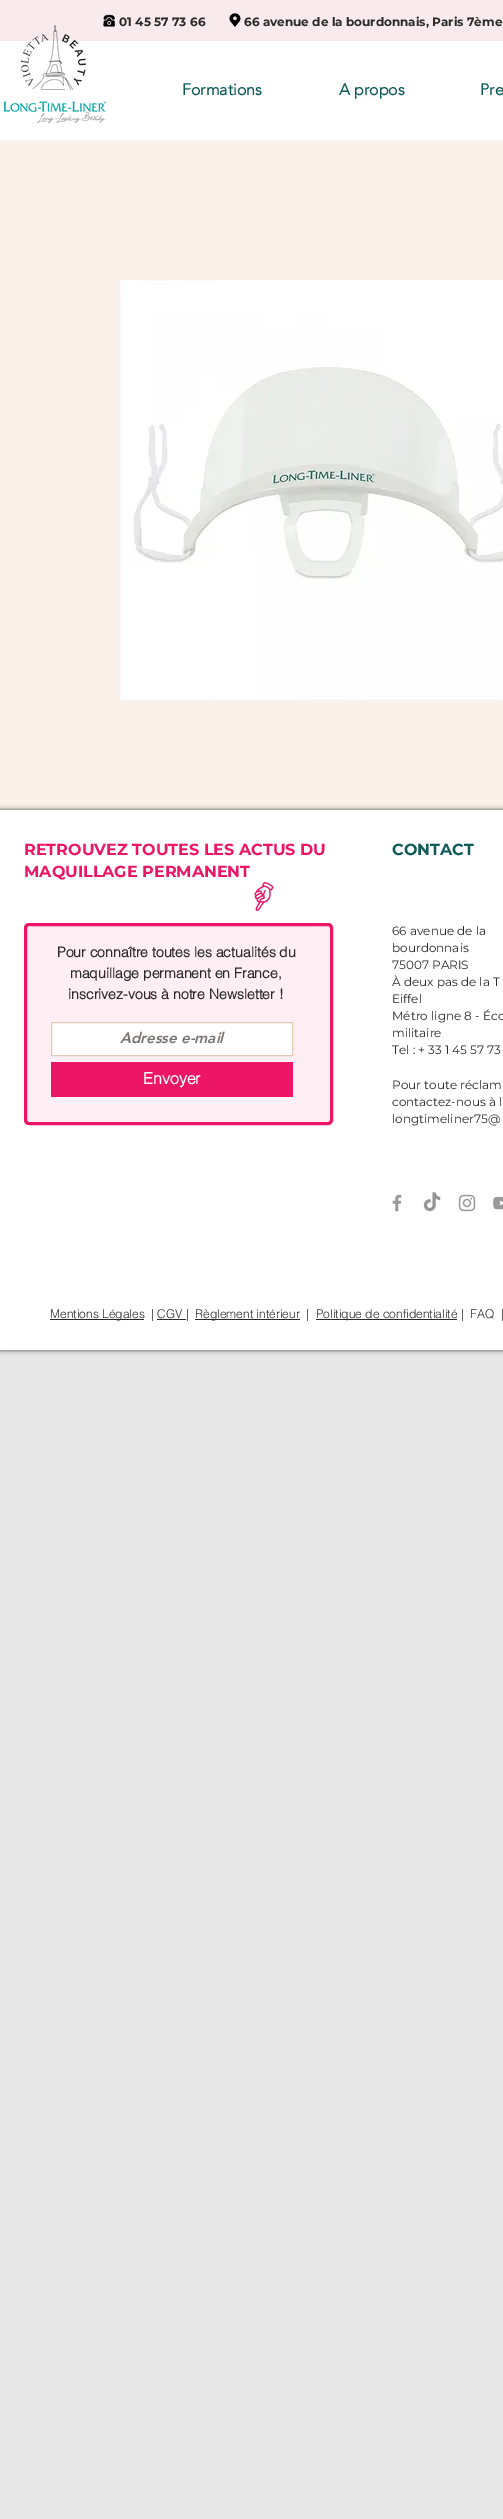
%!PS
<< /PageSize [503 2519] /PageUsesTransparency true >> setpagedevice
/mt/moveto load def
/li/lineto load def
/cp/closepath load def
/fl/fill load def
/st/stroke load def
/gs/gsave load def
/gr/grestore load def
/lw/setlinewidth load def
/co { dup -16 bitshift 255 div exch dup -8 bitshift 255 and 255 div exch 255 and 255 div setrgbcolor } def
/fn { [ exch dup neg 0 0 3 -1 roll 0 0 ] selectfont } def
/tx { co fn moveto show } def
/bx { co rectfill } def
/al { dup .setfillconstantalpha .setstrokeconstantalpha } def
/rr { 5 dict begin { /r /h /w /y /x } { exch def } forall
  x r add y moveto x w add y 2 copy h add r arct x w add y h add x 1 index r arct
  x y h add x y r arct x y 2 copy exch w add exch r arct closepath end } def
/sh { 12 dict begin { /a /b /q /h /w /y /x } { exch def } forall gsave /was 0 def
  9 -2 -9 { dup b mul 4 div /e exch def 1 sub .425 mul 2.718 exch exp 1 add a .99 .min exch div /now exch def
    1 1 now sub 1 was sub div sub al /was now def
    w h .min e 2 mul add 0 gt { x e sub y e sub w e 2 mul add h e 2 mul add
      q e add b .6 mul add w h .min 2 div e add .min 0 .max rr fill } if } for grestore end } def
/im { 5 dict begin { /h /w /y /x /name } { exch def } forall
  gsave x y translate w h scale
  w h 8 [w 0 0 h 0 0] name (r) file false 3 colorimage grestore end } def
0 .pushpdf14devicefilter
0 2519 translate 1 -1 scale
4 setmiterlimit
0 0 503 2519 16#E8E8E8 bx
0 0 503 41 16#F9EAED bx
(media/1.raw) 103 14 12 13 im
(media/2.raw) 229 13 12 14 im
0 41 503 99 16#FFFFFF bx
(media/3.raw) 3 101 103 22 im
(media/4.raw) 21 25 65 65 im
0 140 503 670 16#F9F1EA bx
(media/5.raw) 120 280 383 420 im
16#000000 co
0 810 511 540 0 2.5 .7 sh
0 810 503 540 16#FFFFFF bx
(media/6.raw) 254 882 20 29 im
16#FFEEF4 co
25.5 924.5 306 199 3.5 rr gs fl gr
16#ED1566 co
3 lw
st
16#FFFFFF co
51.5 1022.5 mt 292.5 1022.5 li 292.5 1055.5 li 51.5 1055.5 li cp gs fl gr
16#E2CAB7 co
1 lw
st
51 1062 242 35 16#ED1566 bx
(media/7.raw) 392 1194 10 18 im
(media/8.raw) 423 1192 18 20 im
(media/9.raw) 458 1194 18 18 im
(media/10.raw) 493 1196 10 14 im
50 1319 94 1 16#2A2A2A bx
157 1319 29 1 16#2A2A2A bx
195 1319 105 1 16#2A2A2A bx
316 1319 141 1 16#2A2A2A bx
(01 45 57 73 66) 119 26 /Montserrat-Bold 12 16#2A2A2A tx
(66 avenue de la bourdonnais, Paris 7ème) 244 26 /Montserrat-Bold 12 16#2A2A2A tx
(Formations) 182 95 /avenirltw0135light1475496-Bold 16 16#0F5B5B tx
(A propos) 339 95 /avenirltw0135light1475496-Bold 16 16#0F5B5B tx
(Pre) 480 95 /avenirltw0135light1475496-Bold 16 16#0F5B5B tx
(RETROUVEZ TOUTES LES ACTUS DU) 24 855 /Montserrat-Bold 16 16#ED1566 tx
(MAQUILLAGE PERMANENT) 24 877 /Montserrat-Bold 16 16#ED1566 tx
(CONTACT) 392 855 /Montserrat-Bold 16 16#0F5B5B tx
(Pour connaître toutes les actualités du) 57 957 /helvetica-Bold 14 16#2A2A2A tx
(maquillage permanent en France,) 70 978 /helvetica-Bold 14 16#2A2A2A tx
(inscrivez-vous à notre Newsletter !) 68 999 /helvetica-Bold 14 16#2A2A2A tx
(Adresse e-mail) 120 1043 /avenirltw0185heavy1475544-BlackItalic 15 16#7A736F tx
(Envoyer) 143 1084 /helvetica-Bold 16 16#FFFFFF tx
(66 avenue de la) 392 935 /Montserrat-Regular 12 16#2A2A2A tx
(bourdonnais) 392 952 /Montserrat-Regular 12 16#2A2A2A tx
(75007 PARIS) 392 969 /Montserrat-Regular 12 16#2A2A2A tx
(À deux pas de la T) 392 986 /Montserrat-Regular 12 16#2A2A2A tx
(Eiffel) 392 1003 /Montserrat-Regular 12 16#2A2A2A tx
(Métro ligne 8 - Éco) 392 1020 /Montserrat-Regular 12 16#2A2A2A tx
(militaire) 392 1037 /Montserrat-Regular 12 16#2A2A2A tx
(Tel : + 33 1 45 57 73) 392 1054 /Montserrat-Regular 12 16#2A2A2A tx
(Pour toute réclam) 392 1089 /Montserrat-Regular 12 16#2A2A2A tx
(contactez-nous à l) 392 1106 /Montserrat-Regular 12 16#2A2A2A tx
(longtimeliner75@) 392 1123 /Montserrat-Regular 12 16#2A2A2A tx
(Mentions Légales) 50 1318 /helvetica-Light 12 16#2A2A2A tx
(| CGV |) 151 1318 /helvetica-Light 12 16#2A2A2A tx
(Règlement intérieur) 195 1318 /helvetica-Light 12 16#2A2A2A tx
(|) 306 1318 /helvetica-Light 12 16#2A2A2A tx
(Politique de confidentialité |  FAQ  |) 316 1318 /helvetica-Light 12 16#2A2A2A tx
.poppdf14devicefilter showpage
